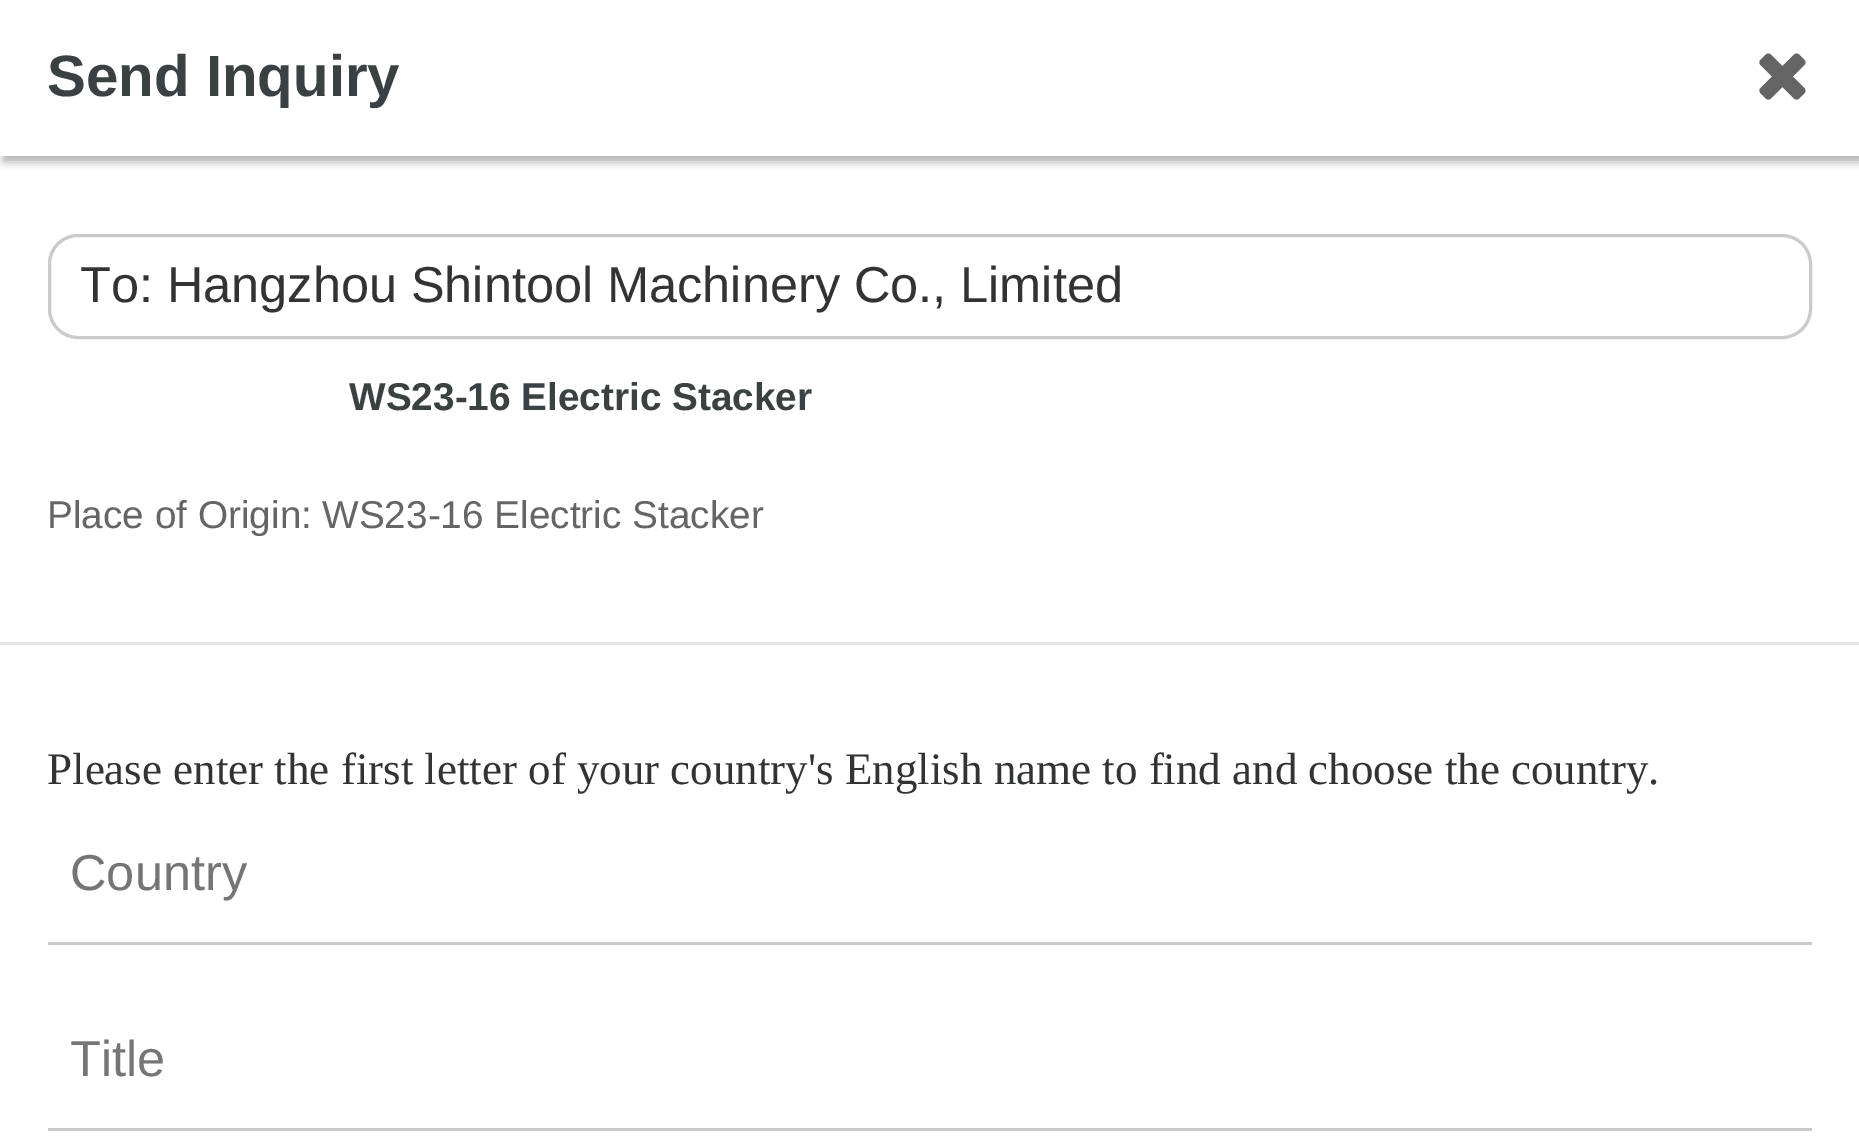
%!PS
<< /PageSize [1859 1145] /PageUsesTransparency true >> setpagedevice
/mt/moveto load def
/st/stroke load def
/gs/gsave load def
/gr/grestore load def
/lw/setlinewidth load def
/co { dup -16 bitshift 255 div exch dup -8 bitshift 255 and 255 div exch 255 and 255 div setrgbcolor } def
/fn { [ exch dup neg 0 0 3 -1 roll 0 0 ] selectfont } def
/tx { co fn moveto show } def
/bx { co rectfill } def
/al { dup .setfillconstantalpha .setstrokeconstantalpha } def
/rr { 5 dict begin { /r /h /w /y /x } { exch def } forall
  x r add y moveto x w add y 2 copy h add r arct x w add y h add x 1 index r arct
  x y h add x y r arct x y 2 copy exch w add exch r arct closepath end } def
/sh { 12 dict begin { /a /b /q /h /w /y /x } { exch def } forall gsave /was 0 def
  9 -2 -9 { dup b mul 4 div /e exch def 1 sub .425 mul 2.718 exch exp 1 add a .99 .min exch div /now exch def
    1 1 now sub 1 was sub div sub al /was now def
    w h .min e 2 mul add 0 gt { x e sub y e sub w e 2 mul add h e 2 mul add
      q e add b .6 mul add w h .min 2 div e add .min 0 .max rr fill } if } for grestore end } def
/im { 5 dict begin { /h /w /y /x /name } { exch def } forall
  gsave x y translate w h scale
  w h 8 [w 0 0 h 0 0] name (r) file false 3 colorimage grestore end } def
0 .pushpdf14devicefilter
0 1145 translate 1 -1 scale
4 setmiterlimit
0 0 1859 1145 16#FFFFFF bx
gs
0 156 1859 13 rectclip
16#000000 co
3 6 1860 156 0 4.5 .3 sh
gr
(media/1.raw) 1759 53 47 47 im
16#CACACA co
3 lw
49.5 235.5 1761 102 28.5 rr st
0 642 1859 3 16#E6E6E6 bx
48 942 1764 3 16#CACACA bx
48 1128 1764 3 16#CACACA bx
(Send Inquiry) 47 96 /LiberationSans-Bold 58.25 16#3B4043 tx
/LiberationSans-Regular 50.5 fn
16#323333 co
80 302 mt -.25 0 32 (To: Hangzhou Shintool Machinery Co., Limited) widthshow
(WS23-16 Electric Stacker) 349 410 /LiberationSans-Bold 38.75 16#3B4043 tx
(Place of Origin:) 47 528 /LiberationSans-Regular 38.75 16#646565 tx
(WS23-16 Electric Stacker) 322 528 /LiberationSans-Regular 38.75 16#646565 tx
(Please enter the first letter of your country's English name to find and choose the country.) 47 784 /LiberationSerif-Regular 45 16#323333 tx
(Country) 70 890 /LiberationSans-Regular 50.5 16#757575 tx
(Title) 70 1076 /LiberationSans-Regular 50.5 16#757575 tx
.poppdf14devicefilter showpage
